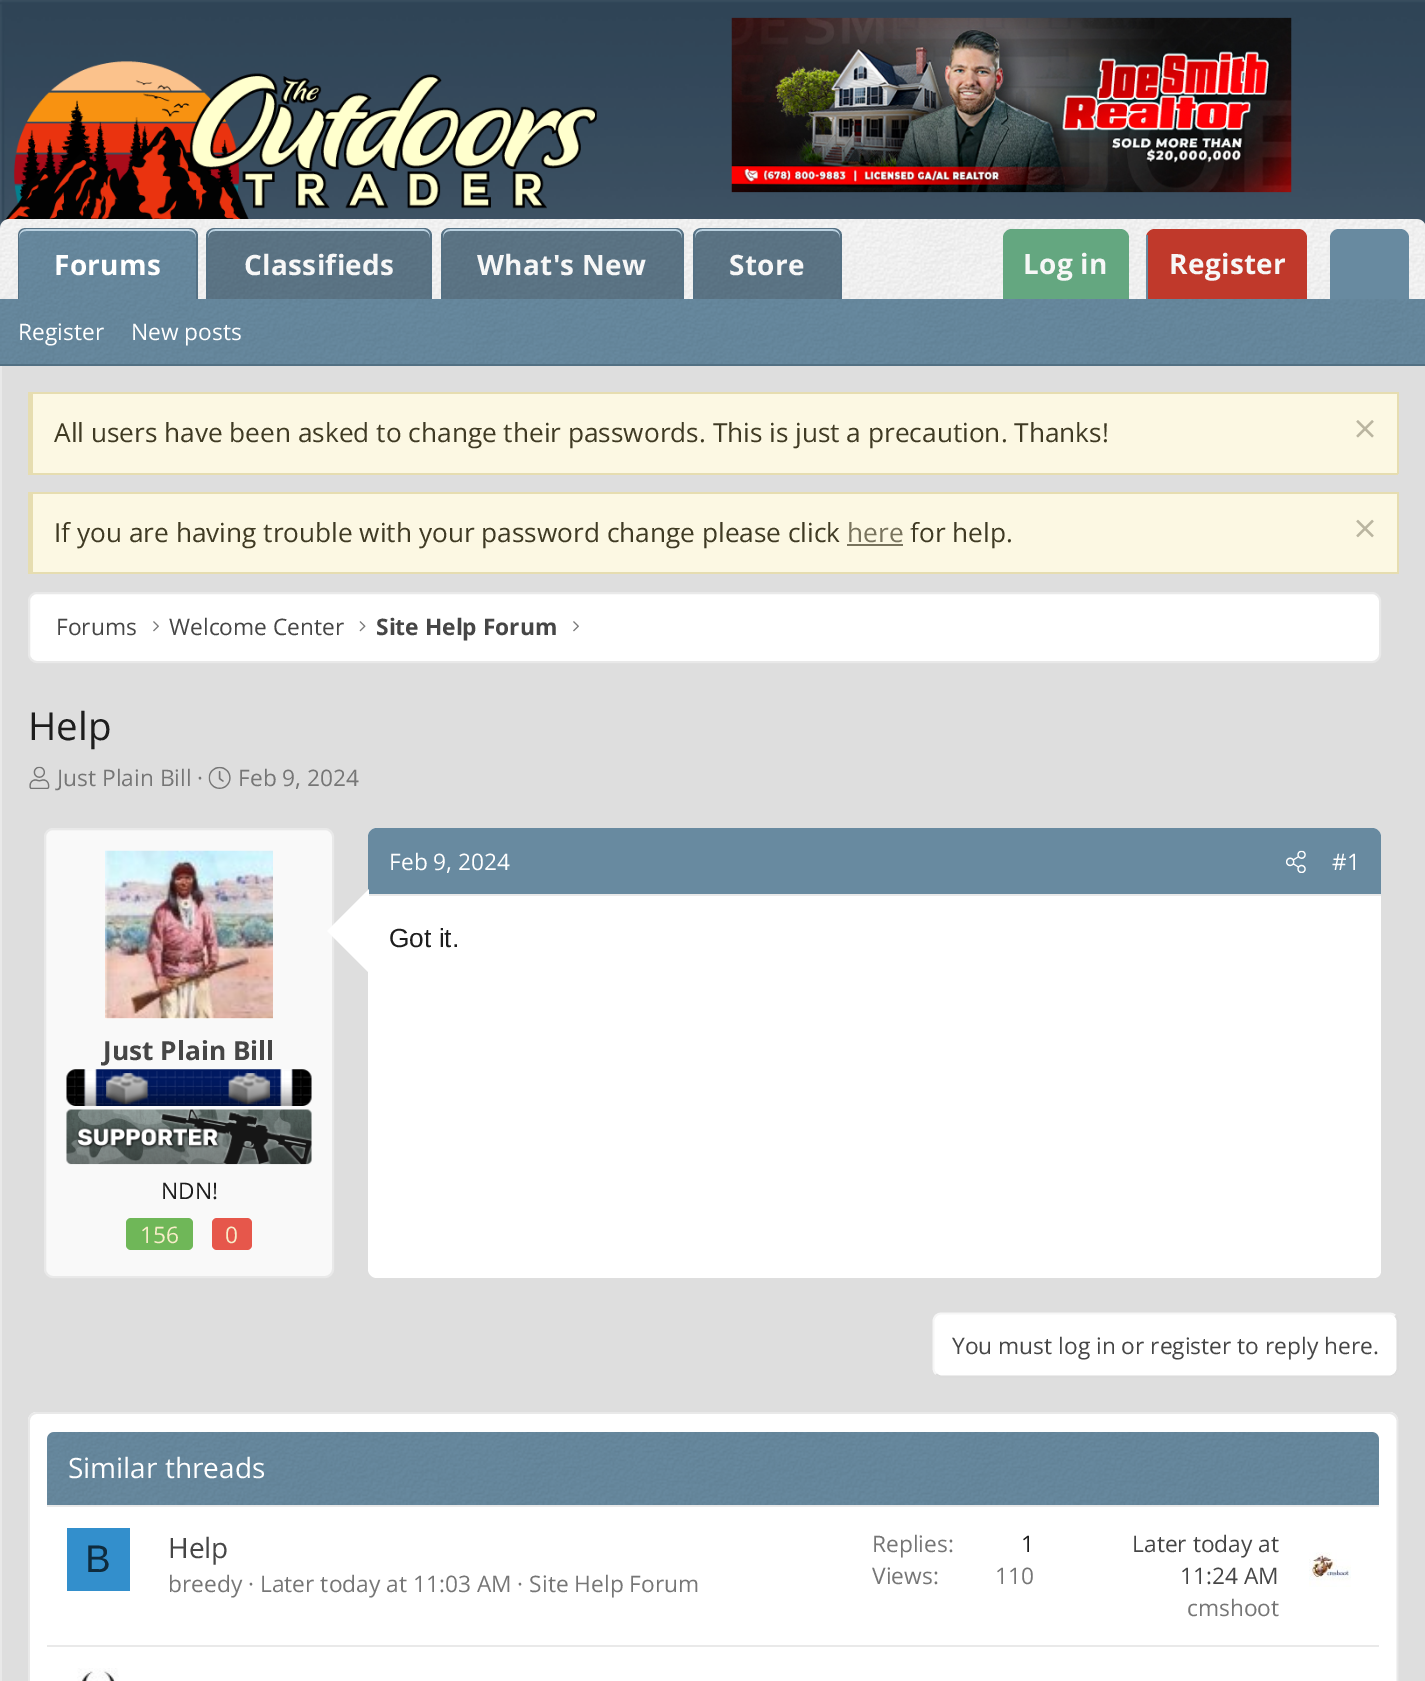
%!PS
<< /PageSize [1425 1681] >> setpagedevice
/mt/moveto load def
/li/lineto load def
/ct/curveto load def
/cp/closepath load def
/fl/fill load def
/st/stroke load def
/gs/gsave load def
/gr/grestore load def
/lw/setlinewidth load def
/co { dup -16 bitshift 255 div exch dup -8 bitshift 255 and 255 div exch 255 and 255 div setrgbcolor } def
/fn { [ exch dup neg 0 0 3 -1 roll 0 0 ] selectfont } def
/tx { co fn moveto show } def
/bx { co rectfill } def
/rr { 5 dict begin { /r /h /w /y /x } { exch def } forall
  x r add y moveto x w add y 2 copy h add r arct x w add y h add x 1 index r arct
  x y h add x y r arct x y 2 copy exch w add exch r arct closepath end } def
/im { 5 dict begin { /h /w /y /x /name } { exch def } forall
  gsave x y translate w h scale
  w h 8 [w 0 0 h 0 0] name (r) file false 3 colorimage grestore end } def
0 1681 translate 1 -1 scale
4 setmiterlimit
0 0 1425 1681 16#2F4456 bx
(media/1.raw) 0 0 1425 228 im
(media/2.raw) 2 61 595 162 im
(media/3.raw) 731 17 561 176 im
16#F7F7F7 co
9 219 mt 1417 219 li 1422 219 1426 223 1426 228 ct 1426 299 li 0 299 li 0 228 li 0 223 4 219 9 219 ct cp fl
(media/4.raw) 0 219 1425 80 im
16#688AA0 co
26 229 mt 189 229 li 193 229 196 232 196 236 ct 196 299 li 19 299 li 19 236 li 19 232 22 229 26 229 ct cp fl
(media/5.raw) 18 228 178 71 im
16#BBD2E1 co
26 231 mt 189 231 li 193 231 196 234 196 238 ct 196 236 li 196 232 193 229 189 229 ct 26 229 li 22 229 19 232 19 236 ct 19 238 li 19 234 22 231 26 231 ct cp fl
16#557184 co
26 228 mt 189 228 li 194 228 198 231 198 236 ct 198 299 li 18 299 li 18 236 li 18 231 21 228 26 228 ct cp 26 229 mt 189 229 li 193 229 196 232 196 236 ct 196 299 li 19 299 li 19 236 li 19 232 22 229 26 229 ct cp eofill
16#5D7687 co
215 229 mt 424 229 li 428 229 431 232 431 236 ct 431 299 li 208 299 li 208 236 li 208 232 211 229 215 229 ct cp fl
(media/6.raw) 208 228 224 71 im
16#BBD2E1 co
215 231 mt 424 231 li 427 231 430 234 430 238 ct 430 299 li 431 299 li 431 236 li 431 232 428 229 424 229 ct 215 229 li 211 229 208 232 208 236 ct 208 238 li 208 234 211 231 215 231 ct cp fl
16#557184 co
215 228 mt 424 228 li 428 228 432 231 432 236 ct 432 299 li 206 299 li 206 236 li 206 231 210 228 215 228 ct cp 215 229 mt 424 229 li 427 229 430 232 430 236 ct 430 299 li 208 299 li 208 236 li 208 232 211 229 215 229 ct cp eofill
16#5D7687 co
450 229 mt 676 229 li 680 229 683 232 683 236 ct 683 299 li 443 299 li 443 236 li 443 232 446 229 450 229 ct cp fl
(media/7.raw) 441 228 243 71 im
16#BBD2E1 co
450 231 mt 676 231 li 679 231 682 234 682 238 ct 682 299 li 683 299 li 683 236 li 683 232 680 229 676 229 ct 450 229 li 446 229 443 232 443 236 ct 443 238 li 443 234 446 231 450 231 ct cp fl
16#557184 co
450 228 mt 676 228 li 680 228 684 231 684 236 ct 684 299 li 441 299 li 441 236 li 441 231 445 228 450 228 ct cp 450 229 mt 676 229 li 679 229 682 232 682 236 ct 682 299 li 443 299 li 443 236 li 443 232 446 229 450 229 ct cp eofill
16#5D7687 co
702 229 mt 833 229 li 837 229 840 232 840 236 ct 840 299 li 695 299 li 695 236 li 695 232 698 229 702 229 ct cp fl
(media/8.raw) 693 228 148 71 im
16#BBD2E1 co
702 231 mt 833 231 li 837 231 840 234 840 238 ct 840 236 li 840 232 837 229 833 229 ct 702 229 li 698 229 695 232 695 236 ct 695 238 li 695 234 698 231 702 231 ct cp fl
16#557184 co
702 228 mt 833 228 li 838 228 842 231 842 236 ct 842 299 li 693 299 li 693 236 li 693 231 697 228 702 228 ct cp 702 229 mt 833 229 li 837 229 840 232 840 236 ct 840 299 li 695 299 li 695 236 li 695 232 698 229 702 229 ct cp eofill
16#64A780 co
1012 229 mt 1120 229 li 1125 229 1129 233 1129 238 ct 1129 299 li 1003 299 li 1003 238 li 1003 233 1007 229 1012 229 ct cp fl
16#C0392B co
1155 229 mt 1298 229 li 1303 229 1307 233 1307 238 ct 1307 299 li 1146 299 li 1146 238 li 1146 233 1150 229 1155 229 ct cp fl
1146 235 2 64 16#688AA0 bx
1339 229 mt 1400 229 li 1405 229 1409 233 1409 238 ct 1409 299 li 1330 299 li 1330 238 li 1330 233 1334 229 1339 229 ct cp fl
0 299 1425 65 16#688AA0 bx
(media/9.raw) 0 299 1425 65 im
0 364 1425 2 16#527083 bx
2 366 1423 1315 16#DEDEDE bx
0 366 2 1315 16#E9E9E9 bx
33 394 1364 79 16#FCF8E3 bx
28 392 1370 2 16#E6DDB0 bx
1397 392 2 82 16#E6DDB0 bx
28 473 1370 2 16#E6DDB0 bx
28 392 5 82 16#E6DDB0 bx
(media/10.raw) 1356 420 18 18 im
33 494 1364 78 16#FCF8E3 bx
28 492 1370 2 16#E6DDB0 bx
1397 492 2 82 16#E6DDB0 bx
28 572 1370 2 16#E6DDB0 bx
28 492 5 82 16#E6DDB0 bx
847 544 56 2 16#78735D bx
(media/11.raw) 1356 519 18 19 im
16#FFFFFF co
29 593 1351 69 8 rr gs fl gr
16#E9E9E9 co
2 lw
st
(media/12.raw) 153 621 6 11 im
(media/13.raw) 359 621 7 11 im
(media/12.raw) 573 621 6 11 im
(media/14.raw) 29 766 21 23 im
(media/15.raw) 208 766 23 23 im
16#FFFFFF co
377 828 mt 1372 828 li 1377 828 1381 832 1381 837 ct 1381 1271 li 1381 1275 1378 1278 1374 1278 ct 377 1278 li 372 1278 368 1274 368 1269 ct 368 837 li 368 832 372 828 377 828 ct cp fl
16#688AA0 co
377 828 mt 1372 828 li 1377 828 1381 832 1381 837 ct 1381 896 li 368 896 li 368 837 li 368 832 372 828 377 828 ct cp fl
368 894 1013 2 16#E9E9E9 bx
(media/16.raw) 1286 850 20 23 im
16#F9F9F9 co
45 829 288 448 8 rr gs fl gr
16#E9E9E9 co
st
105 1018 168 1 16#FFFFFF bx
(media/17.raw) 105 850 168 169 im
369 889 mt 369 973 li 327 931 li cp fl
(media/18.raw) 66 1069 246 37 im
(media/19.raw) 66 1109 246 56 im
16#6FB758 co
126 1218 67 32 5 rr fl
16#E6574B co
212 1218 40 32 5 rr fl
16#FFFFFF co
933 1313 465 64 9 rr fl
16#DCDCDC co
1.8 lw
1395 1315.5 mt 1396.5 1317 1397.5 1319 1397.5 1321 ct 1397.5 1368.5 li 1397.5 1370.5 1396.5 1372.5 1395 1374 ct 1393.5 1375.5 1391.5 1376.5 1389.5 1376.5 ct 941.5 1376.5 li 939.5 1376.5 937.5 1375.5 936 1374 ct st
16#F6F6F6 co
936 1374 mt 934.5 1372.5 933.5 1370.5 933.5 1368.5 ct 933.5 1321 li 933.5 1319 934.5 1317 936 1315.5 ct 937.5 1314 939.5 1313.5 941.5 1313.5 ct 1389.5 1313.5 li 1391.5 1313.5 1393.5 1314 1395 1315.5 ct st
16#FFFFFF co
28 1412 1370 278 9 rr fl
16#E9E9E9 co
31 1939.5 mt 29.5 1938 29 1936 29 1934 ct 29 1421 li 29 1419 29.5 1417 31 1415.5 ct 32.5 1414 34.5 1413 37 1413 ct 1389.5 1413 li 1391.5 1413 1393.5 1414 1395 1415.5 ct 1396.5 1417 1397.5 1419 1397.5 1421 ct 1397.5 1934 li 1397.5 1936 1396.5 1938 1395 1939.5 ct st
16#688AA0 co
54 1432 mt 1372 1432 li 1376 1432 1379 1435 1379 1439 ct 1379 1507 li 47 1507 li 47 1439 li 47 1435 50 1432 54 1432 ct cp fl
(media/20.raw) 47 1432 1332 73 im
47 1505 1332 2 16#E9E9E9 bx
67 1528 63 63 16#338FCC bx
(media/21.raw) 1309 1552 42 35 im
47 1645 1332 2 16#E9E9E9 bx
(media/22.raw) 77 1668 42 13 im
/OpenSans-Bold 28 fn
16#FFFFFF co
54 275 mt .3 0 (Forums) ashow
16#F7F7F7 co
244 275 mt .3 0 (Classifieds) ashow
477 275 mt .3 0 (What's New) ashow
729 275 mt .3 0 (Store) ashow
1023 274 mt .3 0 (Log in) ashow
1169 274 mt .3 0 (Register) ashow
(Register) 18 340 /OpenSans-Regular 22.75 16#FFFFFF tx
(New posts) 131 340 /OpenSans-Regular 22.75 16#FFFFFF tx
(All users have been asked to change their passwords. This is just a precaution. Thanks!) 54 442 /OpenSans-Regular 26.25 16#3F3A23 tx
(If you are having trouble with your password change please click) 54 542 /OpenSans-Regular 26.25 16#3F3A23 tx
(here) 847 542 /OpenSans-Regular 26.25 16#78735D tx
(for help.) 910 542 /OpenSans-Regular 26.25 16#3F3A23 tx
(Forums) 56 635 /OpenSans-Regular 22.75 16#464646 tx
(Welcome Center) 169 635 /OpenSans-Regular 22.75 16#464646 tx
(Site Help Forum) 376 635 /OpenSans-Bold 22.75 16#464646 tx
(Help) 28 740 /OpenSans-Regular 38.5 16#1D1D1D tx
(Just Plain Bill ·) 57 786 /OpenSans-Regular 22.75 16#767676 tx
(Feb 9, 2024) 238 786 /OpenSans-Regular 22.75 16#767676 tx
(Feb 9, 2024) 389 870 /OpenSans-Regular 22.75 16#FFFFFF tx
(#1) 1332 870 /OpenSans-Regular 22.75 16#FFFFFF tx
(Got it.) 389 947 /LiberationSans-Regular 26.25 16#1D1D1D tx
(Just Plain Bill) 103 1060 /OpenSans-Bold 26.25 16#464646 tx
(NDN!) 161 1199 /OpenSans-Regular 22.75 16#1D1D1D tx
(156) 140 1243 /OpenSans-Regular 22.75 16#F8EDC8 tx
(0) 225 1243 /OpenSans-Regular 22.75 16#F8EDC8 tx
(You must log in or register to reply here.) 952 1354 /OpenSans-Regular 22.75 16#464646 tx
(Similar threads) 68 1478 /OpenSans-Regular 28 16#FFFFFF tx
(B) 85 1572 /LiberationSans-Regular 38.5 16#0F2B3D tx
(Help) 168 1558 /OpenSans-Regular 28 16#464646 tx
(breedy · Later today at 11:03 AM · Site Help Forum) 168 1592 /OpenSans-Regular 22.75 16#767676 tx
(Replies:) 872 1552 /OpenSans-Regular 22.75 16#767676 tx
(1) 1021 1552 /OpenSans-Regular 22.75 16#1D1D1D tx
(Views:) 872 1584 /OpenSans-Regular 22.75 16#767676 tx
(110) 995 1584 /OpenSans-Regular 22.75 16#767676 tx
(Later today at) 1132 1552 /OpenSans-Regular 22.75 16#464646 tx
(11:24 AM) 1180 1584 /OpenSans-Regular 22.75 16#464646 tx
(cmshoot) 1187 1616 /OpenSans-Regular 22.75 16#767676 tx
showpage
